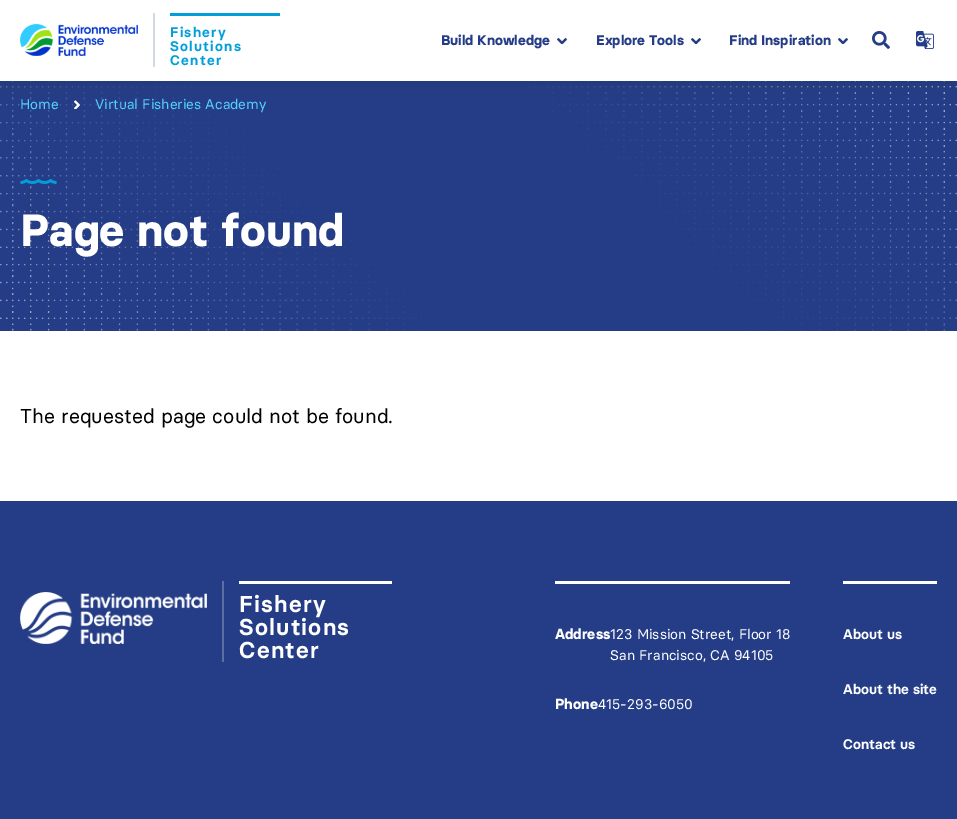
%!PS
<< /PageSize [957 819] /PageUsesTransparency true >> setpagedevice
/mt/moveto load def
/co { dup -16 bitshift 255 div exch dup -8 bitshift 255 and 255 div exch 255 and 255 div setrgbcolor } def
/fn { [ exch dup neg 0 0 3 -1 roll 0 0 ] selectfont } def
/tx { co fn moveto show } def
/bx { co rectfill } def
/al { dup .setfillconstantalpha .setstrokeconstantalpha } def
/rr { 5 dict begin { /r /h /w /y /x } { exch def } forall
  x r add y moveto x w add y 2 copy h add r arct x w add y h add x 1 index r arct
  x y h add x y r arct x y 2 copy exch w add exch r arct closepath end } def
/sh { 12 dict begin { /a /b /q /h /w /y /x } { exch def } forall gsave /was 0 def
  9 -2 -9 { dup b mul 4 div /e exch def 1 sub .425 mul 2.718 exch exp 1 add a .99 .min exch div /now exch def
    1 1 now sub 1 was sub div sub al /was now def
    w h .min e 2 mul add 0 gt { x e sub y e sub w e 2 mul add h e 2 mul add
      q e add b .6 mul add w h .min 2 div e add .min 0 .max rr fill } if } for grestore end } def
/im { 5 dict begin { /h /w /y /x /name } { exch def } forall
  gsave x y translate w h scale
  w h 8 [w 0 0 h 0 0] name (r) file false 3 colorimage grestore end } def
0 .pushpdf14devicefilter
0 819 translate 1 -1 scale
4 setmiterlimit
0 0 957 819 16#FFFFFF bx
0 81 957 250 16#253D86 bx
(media/5.raw) 0 81 428 250 im
(media/6.raw) 529 81 428 250 im
16#000000 co
0 3 957 81 0 5 .07 sh
0 0 957 81 16#FFFFFF bx
(media/1.raw) 20 23 118 33 im
153 13 2 54 16#D3D8E7 bx
170 13 110 3 16#029EDA bx
(media/2.raw) 557 38 10 6 im
(media/2.raw) 691 38 10 6 im
(media/2.raw) 838 38 10 6 im
(media/3.raw) 872 31 18 18 im
(media/4.raw) 916 31 18 18 im
(media/7.raw) 74 100 6 9 im
(media/8.raw) 20 179 37 5 im
0 501 957 318 16#253D86 bx
(media/9.raw) 20 592 187 52 im
222 581 2 81 16#5C6EA4 bx
239 581 153 3 16#FFFFFF bx
555 581 235 3 16#FFFFFF bx
843 581 94 3 16#FFFFFF bx
/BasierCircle-SemiBold 14 fn
16#029EDA co
170 37 mt 1.25 0 (Fishery) ashow
170 51 mt 1.25 0 (Solutions) ashow
170 65 mt 1.25 0 (Center) ashow
(Build Knowledge) 441 45 /BasierCircle-Bold 14 16#253D86 tx
(Explore Tools) 596 45 /BasierCircle-Bold 14 16#253D86 tx
(Find Inspiration) 729 45 /BasierCircle-Bold 14 16#253D86 tx
(Home) 20 109 /BasierCircle-Regular 14 16#53D0FF tx
(Virtual Fisheries Academy) 95 109 /BasierCircle-Regular 14 16#53D0FF tx
(Page not found) 20 246 /BasierCircle-Bold 45 16#FFFFFF tx
(The requested page could not be found.) 20 423 /BasierCircle-Regular 20 16#000000 tx
/BasierCircle-SemiBold 23 fn
16#FFFFFF co
239 612 mt 1.25 0 (Fishery) ashow
239 635 mt 1.25 0 (Solutions) ashow
239 658 mt 1.25 0 (Center) ashow
(Address) 555 639 /BasierCircle-Bold 14.5 16#FFFFFF tx
(123 Mission Street, Floor 18) 610 639 /BasierCircle-Regular 14 16#FFFFFF tx
(San Francisco, CA 94105) 610 660 /BasierCircle-Regular 14 16#FFFFFF tx
(Phone) 555 709 /BasierCircle-Bold 14.5 16#FFFFFF tx
(415-293-6050) 598 709 /BasierCircle-Regular 14 16#FFFFFF tx
(About us) 843 639 /BasierCircle-SemiBold 14 16#FFFFFF tx
(About the site) 843 694 /BasierCircle-SemiBold 14 16#FFFFFF tx
(Contact us) 843 749 /BasierCircle-SemiBold 14 16#FFFFFF tx
.poppdf14devicefilter showpage
